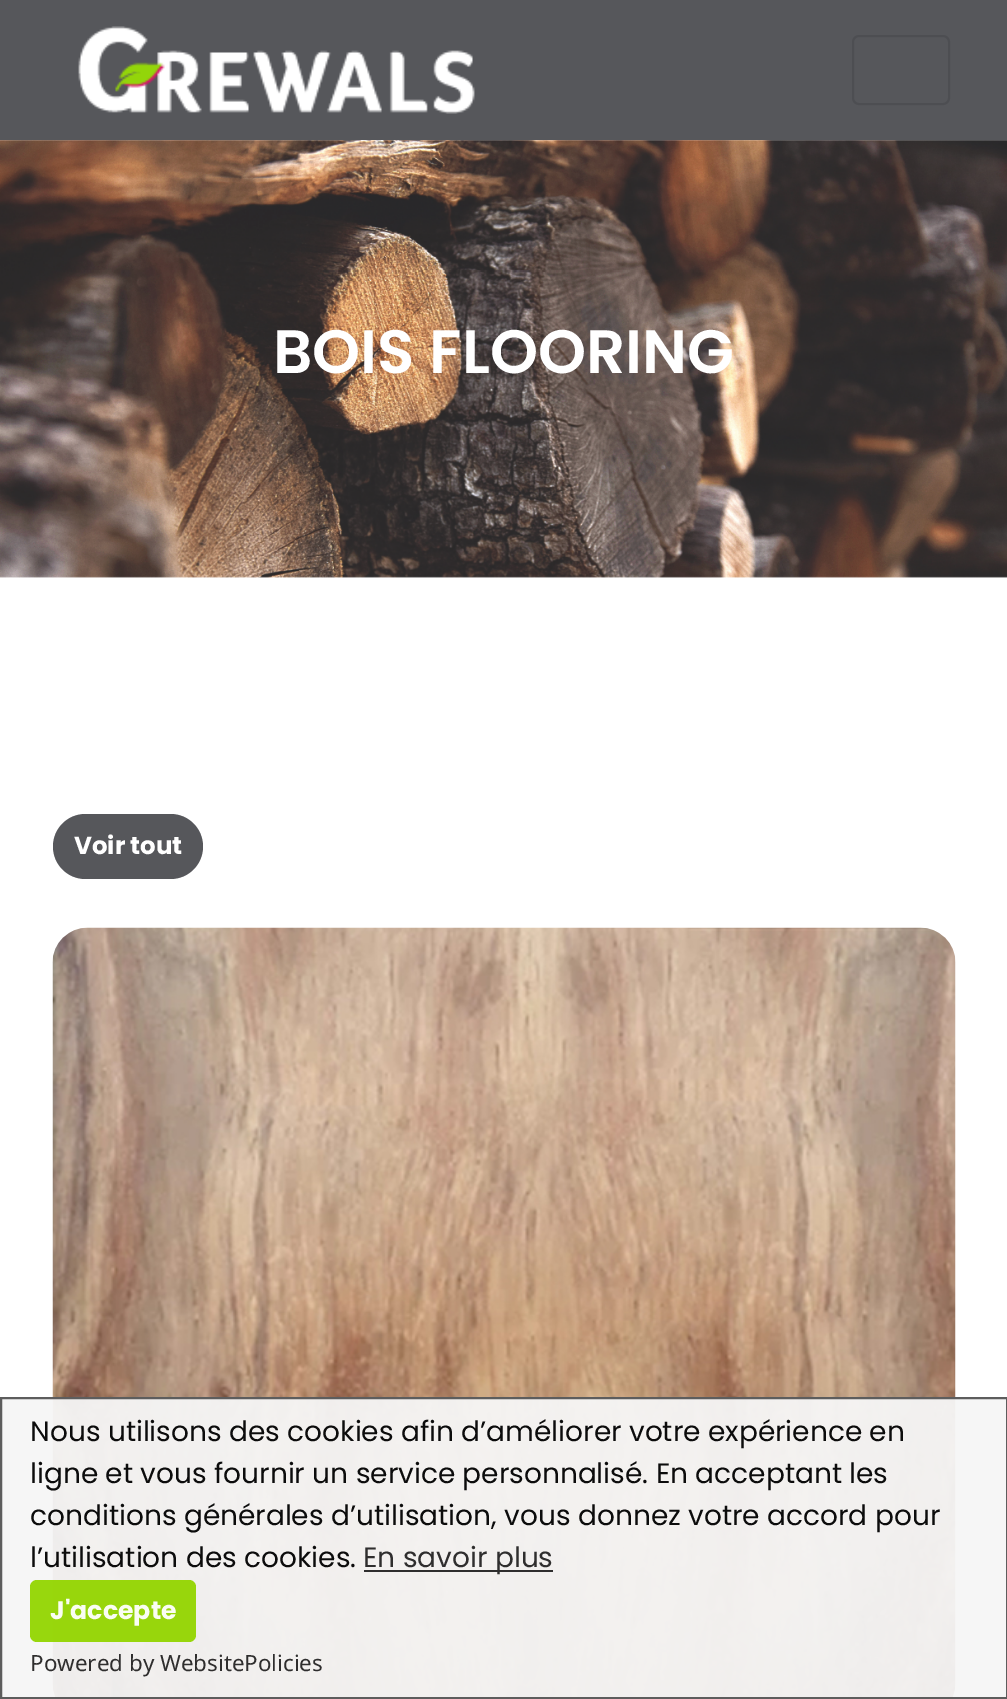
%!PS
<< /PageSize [1007 1699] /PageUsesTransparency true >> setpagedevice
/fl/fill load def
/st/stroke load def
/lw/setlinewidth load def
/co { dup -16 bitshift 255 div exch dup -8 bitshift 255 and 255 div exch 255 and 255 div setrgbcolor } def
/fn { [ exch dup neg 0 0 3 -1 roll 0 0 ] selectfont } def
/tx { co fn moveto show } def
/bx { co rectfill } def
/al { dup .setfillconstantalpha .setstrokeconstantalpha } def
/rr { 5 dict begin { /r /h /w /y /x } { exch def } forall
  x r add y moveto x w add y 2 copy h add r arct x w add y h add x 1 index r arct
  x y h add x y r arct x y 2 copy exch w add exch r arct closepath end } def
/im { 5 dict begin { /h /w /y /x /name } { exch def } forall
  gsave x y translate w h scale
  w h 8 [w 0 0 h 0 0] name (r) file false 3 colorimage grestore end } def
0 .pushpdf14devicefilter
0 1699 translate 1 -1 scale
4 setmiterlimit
0 0 1007 1699 16#FFFFFF bx
0 0 1007 140 16#56575B bx
(media/1.raw) 78 26 397 88 im
16#4D4E52 co
2 lw
853 36 96 68 6 rr st
(media/2.raw) 0 140 1007 438 im
16#56575B co
53 814 150 65 32.5 rr fl
(media/3.raw) 52 927 904 772 im
0.95 al
0 1397 1007 302 16#F6F6F6 bx
16#555555 co
1 1398 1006 300 rectstroke
1 al
364 1570 189 2 16#2F2E2E bx
0.95 al
16#93D500 co
30 1580 166 62 7 rr fl
1 al
(BOIS FLOORING) 273 373 /Poppins-SemiBold 61.25 16#FFFFFF tx
(Voir tout) 74 854 /Poppins-Bold 24.5 16#FFFFFF tx
(Nous utilisons des cookies afin d’améliorer votre expérience en) 30 1441 /Poppins-Regular 28 16#0C0C0C tx
(ligne et vous fournir un service personnalisé. En acceptant les) 30 1483 /Poppins-Regular 28 16#0C0C0C tx
(conditions générales d’utilisation, vous donnez votre accord pour) 30 1525 /Poppins-Regular 28 16#0C0C0C tx
(l’utilisation des cookies.) 30 1567 /Poppins-Regular 28 16#0C0C0C tx
(En savoir plus) 363 1567 /Poppins-Regular 28 16#2F2E2E tx
(J'accepte) 50 1619 /Poppins-Bold 25.25 16#FAFDF3 tx
(Powered by WebsitePolicies) 30 1671 /NotoSans-Regular 22.4 16#2F2E2E tx
.poppdf14devicefilter showpage
